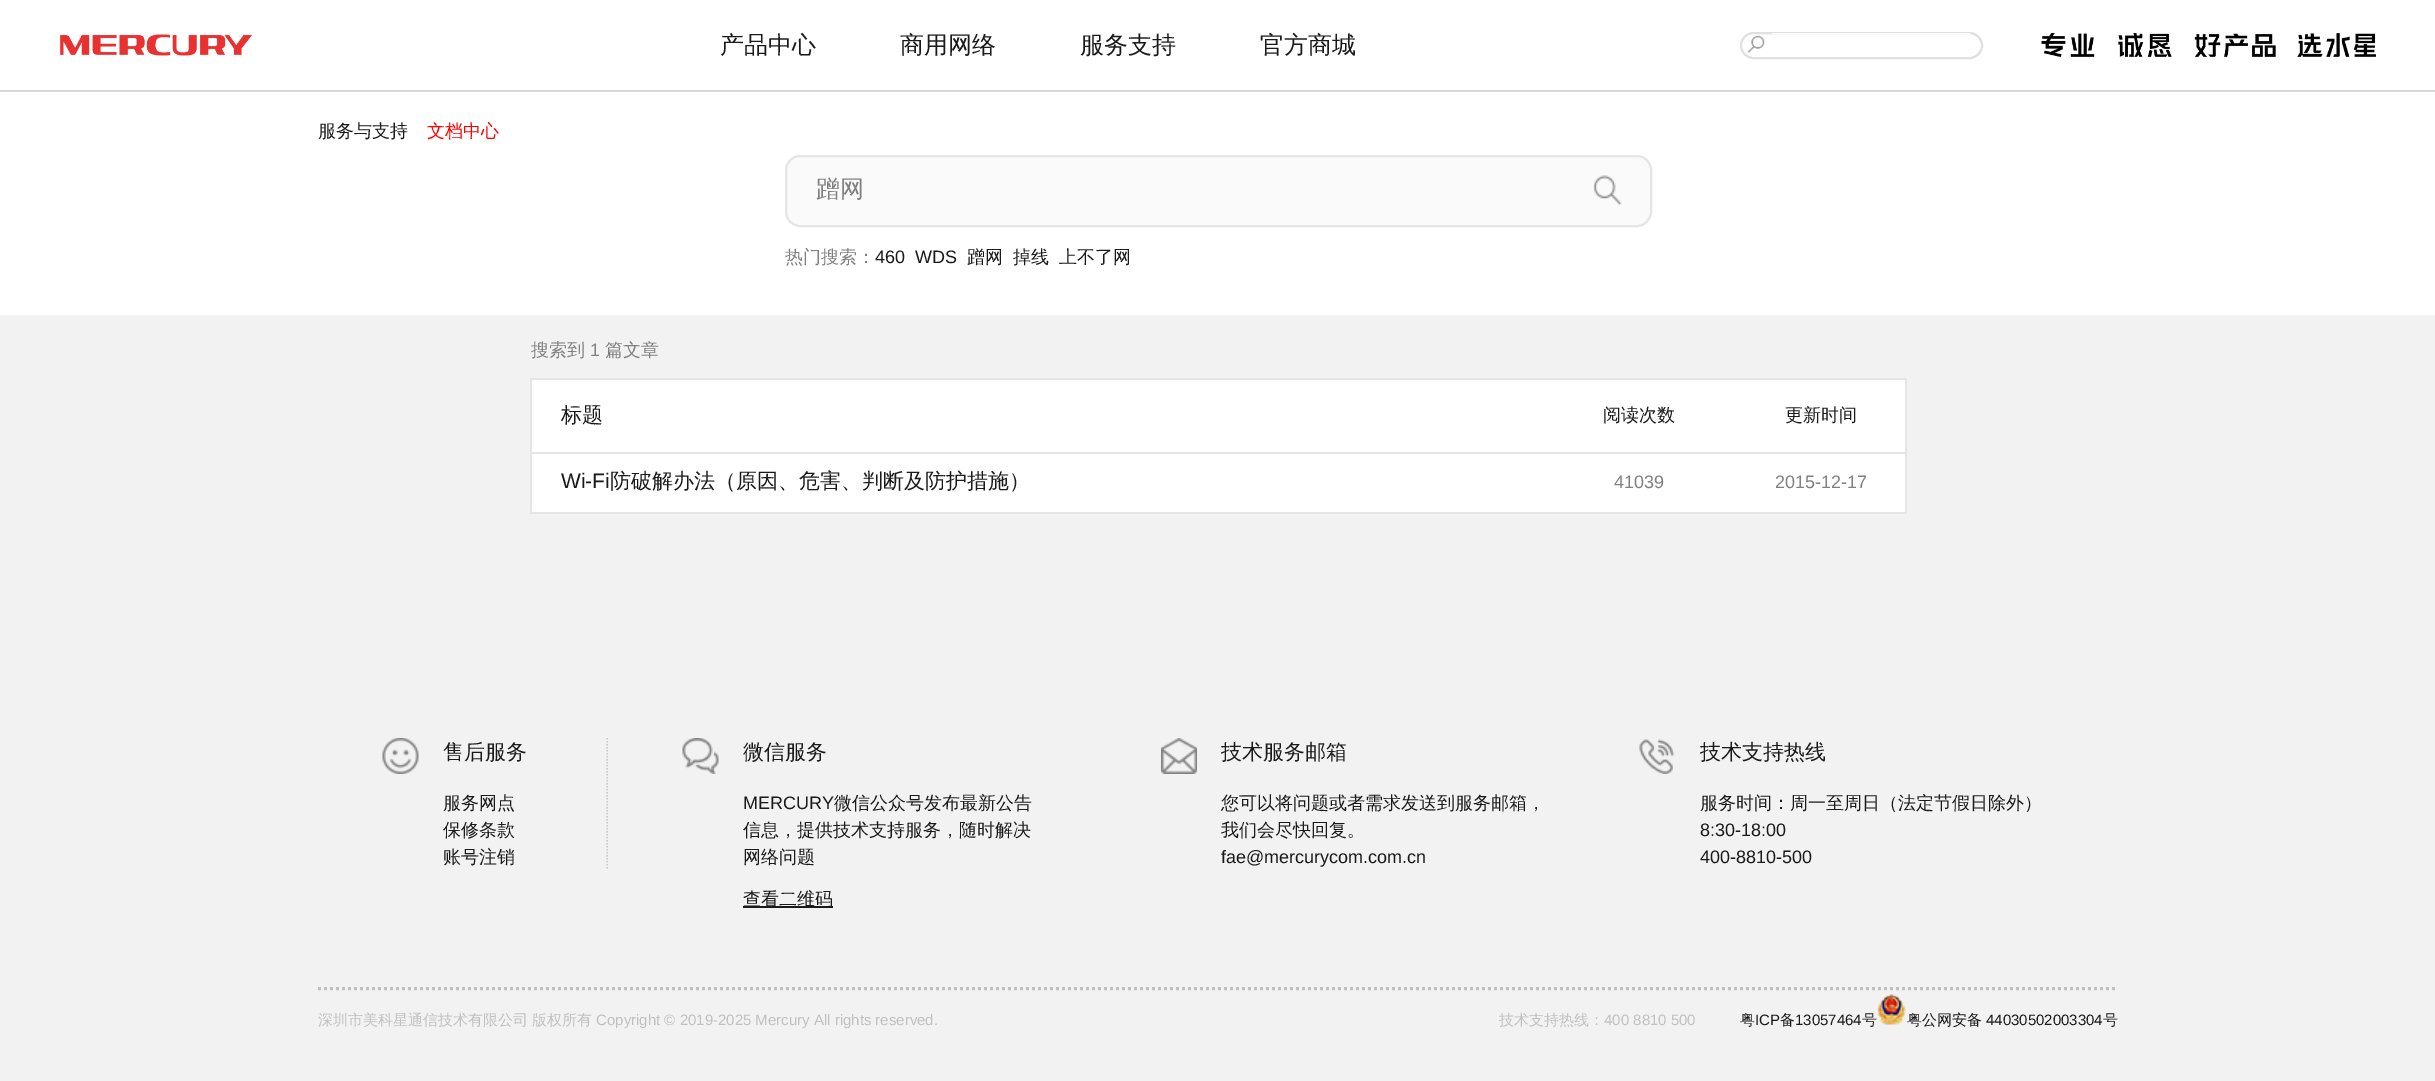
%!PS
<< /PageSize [2435 1081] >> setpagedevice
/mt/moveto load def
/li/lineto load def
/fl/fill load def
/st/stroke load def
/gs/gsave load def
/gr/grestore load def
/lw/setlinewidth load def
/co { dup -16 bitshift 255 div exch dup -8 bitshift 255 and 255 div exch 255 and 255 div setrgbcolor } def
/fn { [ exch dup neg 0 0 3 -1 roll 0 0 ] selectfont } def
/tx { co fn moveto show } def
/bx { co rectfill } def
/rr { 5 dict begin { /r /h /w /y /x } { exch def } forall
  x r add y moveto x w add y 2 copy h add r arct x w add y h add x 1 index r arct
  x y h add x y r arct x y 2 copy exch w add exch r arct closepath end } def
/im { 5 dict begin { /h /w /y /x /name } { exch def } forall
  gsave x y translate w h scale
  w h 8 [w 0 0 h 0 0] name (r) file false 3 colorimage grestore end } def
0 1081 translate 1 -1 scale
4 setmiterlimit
0 0 2435 1081 16#F2F2F2 bx
0 0 2435 90 16#FFFFFF bx
0 90 2435 2 16#D9D9D9 bx
(media/1.raw) 60 34 192 22 im
16#E0E0E0 co
2 lw
1741 33 241 25 12.5 rr st
1772 33 198 1 16#FFFFFF bx
(media/2.raw) 1747 35 18 18 im
(media/3.raw) 2041 33 335 24 im
0 92 2435 223 16#FFFFFF bx
16#FAFAFA co
786 156 865 70 14 rr gs fl gr
16#E5E5E5 co
st
(media/4.raw) 1593 175 29 30 im
16#FFFFFF co
530 378 1377 135 6 rr fl
530 378 1377 2 16#E5E5E5 bx
1905 378 2 135 16#E5E5E5 bx
530 512 1377 2 16#E5E5E5 bx
530 378 2 135 16#E5E5E5 bx
530 452 1377 2 16#E5E5E5 bx
16#CCCCCC co
1.5 lw
[1.5 1.5] 0 setdash
607 738 mt 607 870 li st
(media/5.raw) 382 738 37 36 im
(media/6.raw) 682 738 37 36 im
743 906 90 2 16#1A1A1A bx
(media/7.raw) 1161 738 36 36 im
(media/8.raw) 1639 739 36 35 im
16#C0C0C0 co
3 lw
[3 3] 0 setdash
318 988.5 mt 2118 988.5 li st
(media/9.raw) 1877 994 29 31 im
(产品中心) 720 53 /WenQuanYiZenHei-Medium 24 16#1A1A1A tx
(商用网络) 900 53 /WenQuanYiZenHei-Medium 24 16#1A1A1A tx
(服务支持) 1080 53 /WenQuanYiZenHei-Medium 24 16#1A1A1A tx
(官方商城) 1260 53 /WenQuanYiZenHei-Medium 24 16#1A1A1A tx
(服务与支持) 318 137 /WenQuanYiZenHei-Medium 18 16#1A1A1A tx
(文档中心) 427 137 /WenQuanYiZenHei-Medium 18 16#FF0000 tx
(蹭网) 816 197 /WenQuanYiZenHei-Medium 24 16#808080 tx
(热门搜索：) 785 263 /WenQuanYiZenHei-Medium 18 16#808080 tx
(460) 875 263 /LiberationSans-Regular 18 16#1A1A1A tx
(WDS) 915 263 /LiberationSans-Regular 18 16#1A1A1A tx
(蹭网) 967 263 /WenQuanYiZenHei-Medium 18 16#1A1A1A tx
(掉线) 1013 263 /WenQuanYiZenHei-Medium 18 16#1A1A1A tx
(上不了网) 1059 263 /WenQuanYiZenHei-Medium 18 16#1A1A1A tx
(搜索到) 531 356 /WenQuanYiZenHei-Medium 18 16#808080 tx
(1) 590 356 /LiberationSans-Regular 18 16#808080 tx
(篇文章) 605 356 /WenQuanYiZenHei-Medium 18 16#808080 tx
(标题) 561 422 /WenQuanYiZenHei-Medium 21 16#1A1A1A tx
(阅读次数) 1603 421 /WenQuanYiZenHei-Medium 18 16#1A1A1A tx
(更新时间) 1785 421 /WenQuanYiZenHei-Medium 18 16#1A1A1A tx
(Wi-Fi) 561 488 /LiberationSans-Regular 21 16#1A1A1A tx
(防破解办法（原因、危害、判断及防护措施）) 610 488 /WenQuanYiZenHei-Medium 21 16#1A1A1A tx
(41039) 1614 488 /LiberationSans-Regular 18 16#808080 tx
(2015-12-17) 1775 488 /LiberationSans-Regular 18 16#808080 tx
(售后服务) 443 759 /WenQuanYiZenHei-Medium 21 16#1A1A1A tx
(服务网点) 443 809 /WenQuanYiZenHei-Medium 18 16#1A1A1A tx
(保修条款) 443 836 /WenQuanYiZenHei-Medium 18 16#1A1A1A tx
(账号注销) 443 863 /WenQuanYiZenHei-Medium 18 16#1A1A1A tx
(微信服务) 743 759 /WenQuanYiZenHei-Medium 21 16#1A1A1A tx
(MERCURY) 743 809 /LiberationSans-Regular 18 16#1A1A1A tx
(微信公众号发布最新公告) 834 809 /WenQuanYiZenHei-Medium 18 16#1A1A1A tx
(信息，提供技术支持服务，随时解决) 743 836 /WenQuanYiZenHei-Medium 18 16#1A1A1A tx
(网络问题) 743 863 /WenQuanYiZenHei-Medium 18 16#1A1A1A tx
(查看二维码) 743 905 /WenQuanYiZenHei-Medium 18 16#1A1A1A tx
(技术服务邮箱) 1221 759 /WenQuanYiZenHei-Medium 21 16#1A1A1A tx
(您可以将问题或者需求发送到服务邮箱，) 1221 809 /WenQuanYiZenHei-Medium 18 16#1A1A1A tx
(我们会尽快回复。) 1221 836 /WenQuanYiZenHei-Medium 18 16#1A1A1A tx
(fae@mercurycom.com.cn) 1221 863 /LiberationSans-Regular 18 16#1A1A1A tx
(技术支持热线) 1700 759 /WenQuanYiZenHei-Medium 21 16#1A1A1A tx
(服务时间：周一至周日（法定节假日除外）) 1700 809 /WenQuanYiZenHei-Medium 18 16#1A1A1A tx
(8:30-18:00) 1700 836 /LiberationSans-Regular 18 16#1A1A1A tx
(400-8810-500) 1700 863 /LiberationSans-Regular 18 16#1A1A1A tx
(深圳市美科星通信技术有限公司) 318 1025 /WenQuanYiZenHei-Medium 15 16#C0C0C0 tx
(版权所有) 532 1025 /WenQuanYiZenHei-Medium 15 16#C0C0C0 tx
(Copyright © 2019-2025 Mercury All rights reserved.) 596 1025 /LiberationSans-Regular 15 16#C0C0C0 tx
(技术支持热线：) 1499 1025 /WenQuanYiZenHei-Medium 15 16#C0C0C0 tx
(400 8810 500) 1604 1025 /LiberationSans-Regular 15 16#C0C0C0 tx
(粤) 1740 1025 /WenQuanYiZenHei-Medium 15 16#1A1A1A tx
(ICP) 1755 1025 /LiberationSans-Regular 15 16#1A1A1A tx
(备) 1780 1025 /WenQuanYiZenHei-Medium 15 16#1A1A1A tx
(13057464) 1795 1025 /LiberationSans-Regular 15 16#1A1A1A tx
(号) 1862 1025 /WenQuanYiZenHei-Medium 15 16#1A1A1A tx
(粤公网安备) 1907 1025 /WenQuanYiZenHei-Medium 15 16#1A1A1A tx
(44030502003304) 1986 1025 /LiberationSans-Regular 15 16#1A1A1A tx
(号) 2103 1025 /WenQuanYiZenHei-Medium 15 16#1A1A1A tx
showpage
